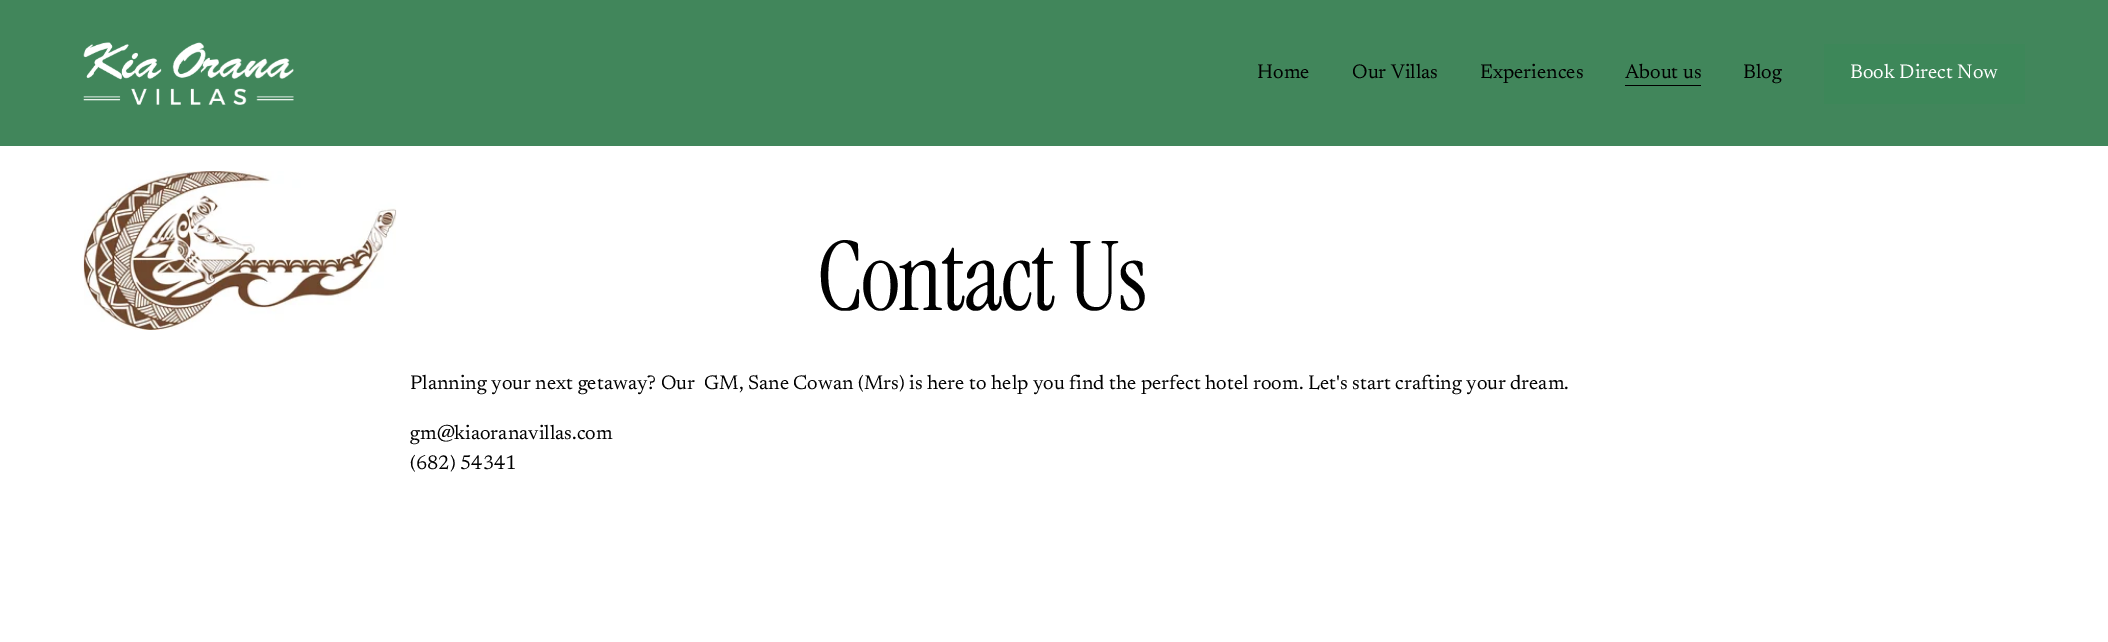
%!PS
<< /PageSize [2108 642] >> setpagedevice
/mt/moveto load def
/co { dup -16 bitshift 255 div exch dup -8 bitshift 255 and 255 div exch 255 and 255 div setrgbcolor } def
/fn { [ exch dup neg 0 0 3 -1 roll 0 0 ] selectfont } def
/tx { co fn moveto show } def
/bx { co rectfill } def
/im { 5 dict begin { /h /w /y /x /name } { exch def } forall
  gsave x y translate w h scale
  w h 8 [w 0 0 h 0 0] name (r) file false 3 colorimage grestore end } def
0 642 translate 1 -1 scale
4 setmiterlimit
0 0 2108 642 16#FFFFFF bx
0 0 2108 146 16#41865B bx
(media/1.raw) 83 42 211 63 im
1625 85 76 1 16#000000 bx
1824 44 201 60 16#3D8759 bx
(media/2.raw) 83 171 314 159 im
(Home) 1257 78 /Newsreader-Regular 20 16#000000 tx
(Our Villas) 1352 78 /Newsreader-Regular 20 16#000000 tx
(Experiences) 1480 78 /Newsreader-Regular 20 16#000000 tx
(About us) 1625 78 /Newsreader-Regular 20 16#000000 tx
(Blog) 1743 78 /Newsreader-Regular 20 16#000000 tx
(Book Direct Now) 1850 78 /Newsreader-Regular 20 16#FFFFFF tx
/InstrumentSerif-Regular 96 fn
16#000000 co
817 310 mt -2 0 (Contact Us) ashow
(Planning your next getaway? Our  GM, Sane Cowan \(Mrs\) is here to help you find the perfect hotel room. Let's start crafting your dream.) 410 389 /Newsreader-Regular 20 16#000000 tx
(gm@kiaoranavillas.com) 410 439 /Newsreader-Regular 20 16#000000 tx
(\(682\) 54341) 410 469 /Newsreader-Regular 20 16#000000 tx
showpage
